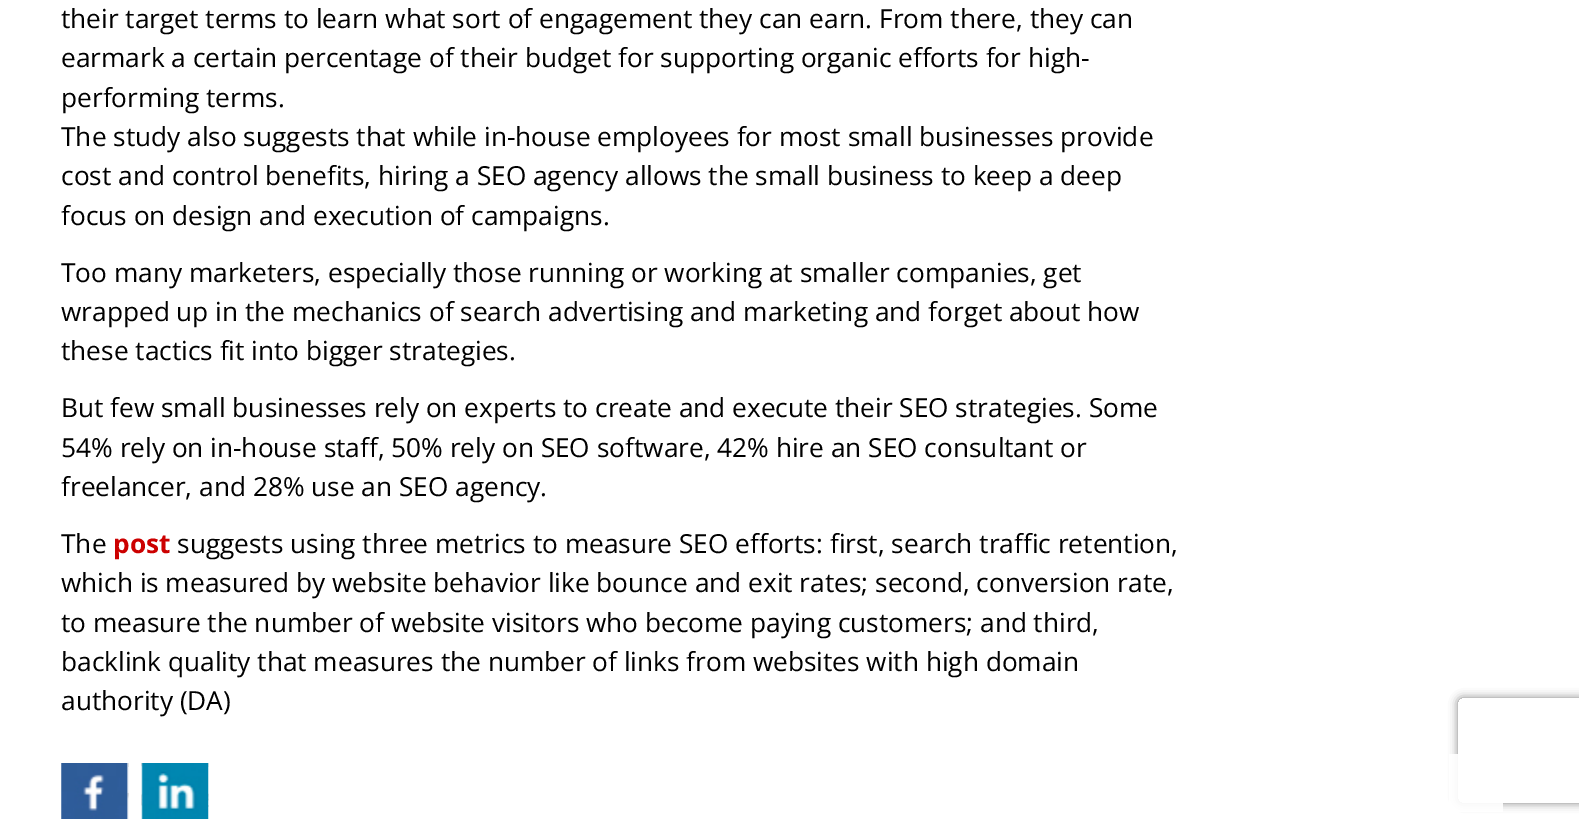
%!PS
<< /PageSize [1579 827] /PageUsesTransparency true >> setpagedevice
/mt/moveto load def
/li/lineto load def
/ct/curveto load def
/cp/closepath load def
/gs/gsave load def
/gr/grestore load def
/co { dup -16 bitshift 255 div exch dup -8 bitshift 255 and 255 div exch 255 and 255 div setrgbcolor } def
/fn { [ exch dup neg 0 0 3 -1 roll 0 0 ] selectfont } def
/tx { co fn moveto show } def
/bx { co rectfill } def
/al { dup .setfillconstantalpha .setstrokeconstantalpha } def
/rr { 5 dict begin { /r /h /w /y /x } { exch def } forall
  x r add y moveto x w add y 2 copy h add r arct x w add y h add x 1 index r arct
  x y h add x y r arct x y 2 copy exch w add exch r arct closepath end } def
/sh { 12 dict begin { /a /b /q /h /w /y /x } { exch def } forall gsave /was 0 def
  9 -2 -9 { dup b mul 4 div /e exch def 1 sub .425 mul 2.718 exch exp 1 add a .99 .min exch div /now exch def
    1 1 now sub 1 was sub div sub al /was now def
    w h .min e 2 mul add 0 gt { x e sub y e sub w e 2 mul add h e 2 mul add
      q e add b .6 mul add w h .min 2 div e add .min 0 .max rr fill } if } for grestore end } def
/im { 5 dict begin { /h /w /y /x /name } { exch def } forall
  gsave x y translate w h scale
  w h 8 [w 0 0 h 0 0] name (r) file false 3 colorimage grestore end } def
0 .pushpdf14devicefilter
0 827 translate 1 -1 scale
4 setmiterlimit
0 0 1579 827 16#FFFFFF bx
gs
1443 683 mt 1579 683 li 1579 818 li 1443 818 li cp 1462 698 mt 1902 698 li 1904 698 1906 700 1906 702 ct 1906 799 li 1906 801 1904 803 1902 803 ct 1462 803 li 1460 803 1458 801 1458 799 ct 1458 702 li 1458 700 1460 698 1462 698 ct cp eoclip newpath
16#808080 co
1458 698 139 105 4 4.5 1 sh
gr
0.9 al
1449 754 54 58 16#FFFFFF bx
1 al
(media/1.raw) 61 763 68 56 im
(media/2.raw) 141 763 68 56 im
(their target terms to learn what sort of engagement they can earn. From there, they can) 61 28 /OpenSans-Regular 26.25 16#000000 tx
(earmark a certain percentage of their budget for supporting organic efforts for high-) 61 67 /OpenSans-Regular 26.25 16#000000 tx
(performing terms.) 61 107 /OpenSans-Regular 26.25 16#000000 tx
(The study also suggests that while in-house employees for most small businesses provide) 61 146 /OpenSans-Regular 26.25 16#000000 tx
(cost and control benefits, hiring a SEO agency allows the small business to keep a deep) 61 185 /OpenSans-Regular 26.25 16#000000 tx
(focus on design and execution of campaigns.) 61 225 /OpenSans-Regular 26.25 16#000000 tx
(Too many marketers, especially those running or working at smaller companies, get) 61 282 /OpenSans-Regular 26.25 16#000000 tx
(wrapped up in the mechanics of search advertising and marketing and forget about how) 61 321 /OpenSans-Regular 26.25 16#000000 tx
(these tactics fit into bigger strategies.) 61 360 /OpenSans-Regular 26.25 16#000000 tx
(But few small businesses rely on experts to create and execute their SEO strategies. Some) 61 417 /OpenSans-Regular 26.25 16#000000 tx
(54% rely on in-house staff, 50% rely on SEO software, 42% hire an SEO consultant or) 61 457 /OpenSans-Regular 26.25 16#000000 tx
(freelancer, and 28% use an SEO agency.) 61 496 /OpenSans-Regular 26.25 16#000000 tx
(The) 61 553 /OpenSans-Regular 26.25 16#000000 tx
(post) 113 553 /OpenSans-Bold 26.25 16#CC0000 tx
(suggests using three metrics to measure SEO efforts: first, search traffic retention,) 177 553 /OpenSans-Regular 26.25 16#000000 tx
(which is measured by website behavior like bounce and exit rates; second, conversion rate,) 61 592 /OpenSans-Regular 26.25 16#000000 tx
(to measure the number of website visitors who become paying customers; and third,) 61 632 /OpenSans-Regular 26.25 16#000000 tx
(backlink quality that measures the number of links from websites with high domain) 61 671 /OpenSans-Regular 26.25 16#000000 tx
(authority \(DA\)) 61 710 /OpenSans-Regular 26.25 16#000000 tx
.poppdf14devicefilter showpage
